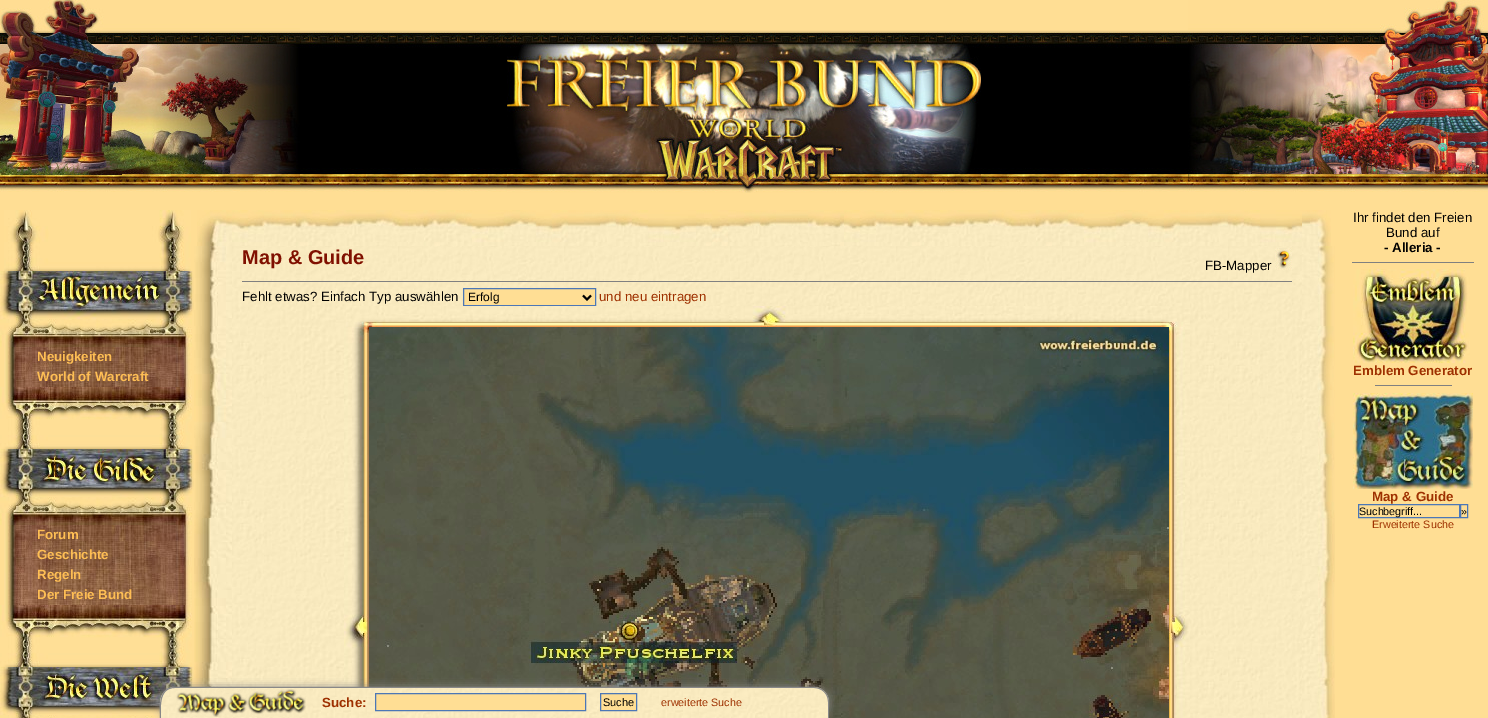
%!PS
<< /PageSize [1488 718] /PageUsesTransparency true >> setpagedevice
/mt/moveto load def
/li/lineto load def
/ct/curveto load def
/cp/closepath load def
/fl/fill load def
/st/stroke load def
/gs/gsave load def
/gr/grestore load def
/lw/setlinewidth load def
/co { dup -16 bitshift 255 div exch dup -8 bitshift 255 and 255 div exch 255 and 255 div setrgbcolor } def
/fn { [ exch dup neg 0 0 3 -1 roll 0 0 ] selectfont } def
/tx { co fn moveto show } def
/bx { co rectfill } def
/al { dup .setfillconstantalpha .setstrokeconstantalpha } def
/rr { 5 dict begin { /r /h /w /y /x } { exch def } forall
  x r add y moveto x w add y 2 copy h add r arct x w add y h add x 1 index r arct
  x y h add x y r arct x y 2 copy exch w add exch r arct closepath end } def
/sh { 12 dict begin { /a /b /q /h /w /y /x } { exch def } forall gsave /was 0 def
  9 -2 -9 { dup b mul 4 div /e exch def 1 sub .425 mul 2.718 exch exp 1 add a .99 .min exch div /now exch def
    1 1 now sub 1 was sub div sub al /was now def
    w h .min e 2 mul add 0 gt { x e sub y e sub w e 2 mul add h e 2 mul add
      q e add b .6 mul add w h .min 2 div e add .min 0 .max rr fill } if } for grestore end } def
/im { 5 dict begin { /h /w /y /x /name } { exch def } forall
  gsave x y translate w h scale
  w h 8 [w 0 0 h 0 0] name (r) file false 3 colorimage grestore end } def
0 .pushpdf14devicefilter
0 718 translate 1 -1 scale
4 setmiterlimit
0 0 1488 718 16#FFDE94 bx
(media/1.raw) 300 30 888 162 im
(media/2.raw) 0 0 300 192 im
(media/3.raw) 507 32 474 161 im
(media/4.raw) 1188 0 300 192 im
(media/5.raw) 197 210 35 36 im
(media/6.raw) 232 210 1070 36 im
(media/7.raw) 1302 210 29 36 im
(media/8.raw) 194 246 38 441 im
(media/9.raw) 232 246 1070 472 im
(media/10.raw) 1275 248 17 22 im
242 281 1050 1 16#808080 bx
16#FFDE94 co
463.5 288.5 mt 595.5 288.5 li 595.5 305.5 li 463.5 305.5 li cp gs fl gr
16#4C77B6 co
st
16#000000 co
2 lw
583 295.5 mt 587 299.5 li 591 295.5 li st
(media/11.raw) 346 306 23 21 im
(media/12.raw) 369 306 800 21 im
(media/13.raw) 1169 308 21 19 im
(media/14.raw) 344 327 25 360 im
(media/15.raw) 369 327 800 391 im
(media/16.raw) 1169 327 21 391 im
(media/17.raw) 1302 246 33 472 im
1352 262 122 1 16#808080 bx
(media/18.raw) 1353 269 117 94 im
1375 385 77 1 16#808080 bx
(media/19.raw) 1353 393 120 96 im
16#4C77B6 co
1 lw
1358.5 504.5 101 13 rectstroke
1460.5 504.5 7 13 rectstroke
(media/20.raw) 4 210 187 61 im
(media/21.raw) 0 271 194 76 im
(media/22.raw) 4 347 188 40 im
(media/23.raw) 0 387 192 62 im
(media/24.raw) 0 449 194 76 im
(media/25.raw) 4 525 188 80 im
(media/23.raw) 0 605 192 62 im
(media/26.raw) 0 667 194 51 im
16#888888 co
160 687 669 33 15 4 1 sh
(media/27.raw) 160 687 669 31 im
175 687 mt 814 687 li 822 687 829 694 829 702 ct 829 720 li 160 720 li 160 708 157 687 175 687 ct cp 175 688 mt 814 688 li 822 688 828 694 828 702 ct 828 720 li 161 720 li 161 709 158 688 175 688 ct cp eofill
(media/28.raw) 176 689 130 28 im
16#FFDE94 co
375.5 693.5 mt 585.5 693.5 li 585.5 710.5 li 375.5 710.5 li cp gs fl gr
16#4C77B6 co
st
16#FFDE94 co
600.5 693.5 mt 636.5 693.5 li 636.5 710.5 li 600.5 710.5 li cp gs fl gr
16#4C77B6 co
st
(Map & Guide) 242 264 /LiberationSans-Bold 20 16#801000 tx
(FB-Mapper) 1205 270 /LiberationSans-Regular 13.3 16#000000 tx
(Fehlt etwas? Einfach Typ auswählen) 242 301 /LiberationSans-Regular 13.3 16#000000 tx
(Erfolg) 468 301 /LiberationSans-Regular 12 16#000000 tx
(und neu eintragen) 599 301 /LiberationSans-Regular 13.3 16#9E3000 tx
(Ihr findet den Freien) 1353 222 /LiberationSans-Regular 13.3 16#000000 tx
(Bund auf) 1386 237 /LiberationSans-Regular 13.3 16#000000 tx
(- Alleria -) 1384 252 /LiberationSans-Bold 13.3 16#000000 tx
(Emblem Generator) 1353 375 /LiberationSans-Bold 13.3 16#9E3000 tx
(Map & Guide) 1372 501 /LiberationSans-Bold 13.3 16#9E3000 tx
(Suchbegriff...) 1359 515 /LiberationSans-Regular 10.75 16#000000 tx
(») 1461 515 /LiberationSans-Regular 10.75 16#000000 tx
(Erweiterte Suche) 1372 528 /LiberationSans-Regular 10.75 16#9E3000 tx
(Neuigkeiten) 37 361 /LiberationSans-Bold 13.3 16#FEBE54 tx
(World of Warcraft) 37 381 /LiberationSans-Bold 13.3 16#FEBE54 tx
(Forum) 37 539 /LiberationSans-Bold 13.3 16#FEBE54 tx
(Geschichte) 37 559 /LiberationSans-Bold 13.3 16#FEBE54 tx
(Regeln) 37 579 /LiberationSans-Bold 13.3 16#FEBE54 tx
(Der Freie Bund) 37 599 /LiberationSans-Bold 13.3 16#FEBE54 tx
(Suche:) 322 707 /LiberationSans-Bold 13.3 16#9E3000 tx
(Suche) 603 706 /LiberationSans-Regular 11 16#000000 tx
(erweiterte Suche) 661 706 /LiberationSans-Regular 10.75 16#9E3000 tx
.poppdf14devicefilter showpage
